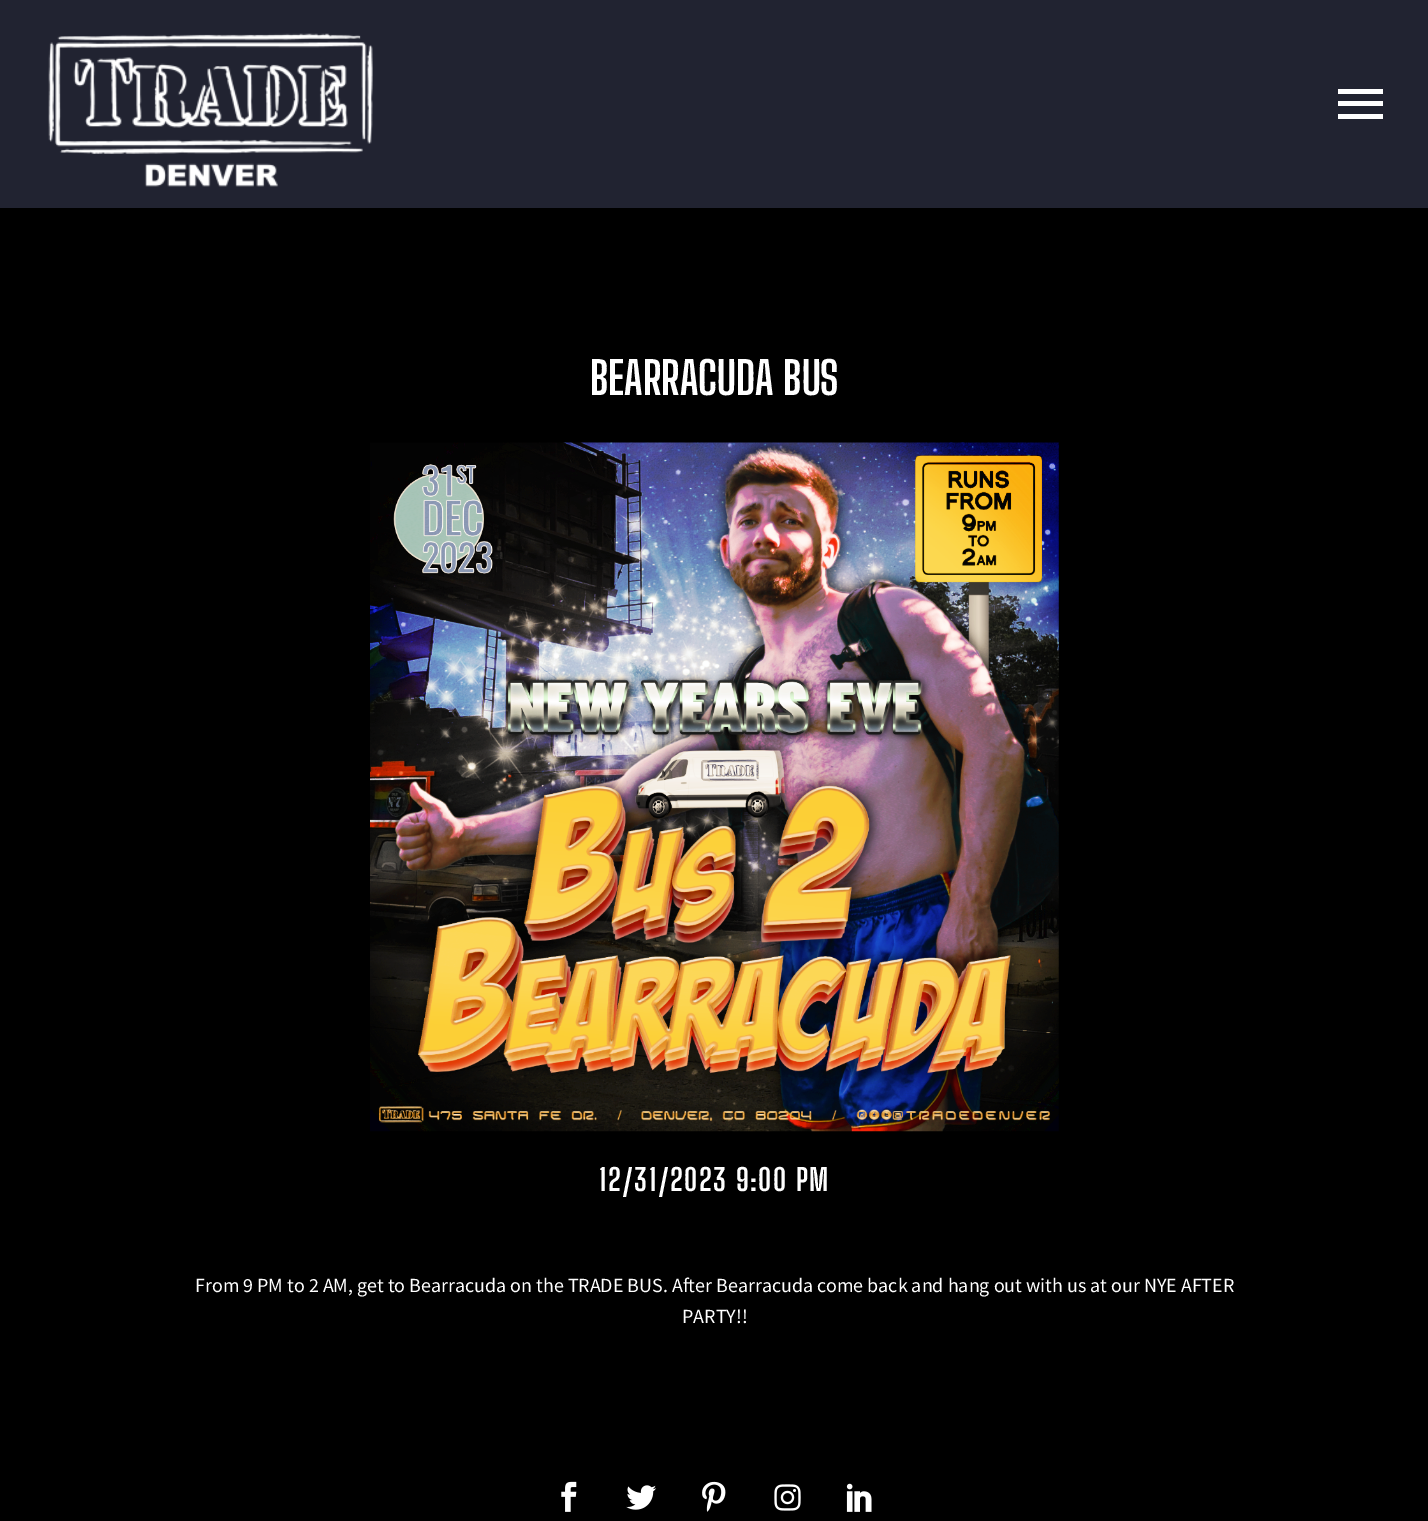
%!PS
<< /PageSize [1428 1521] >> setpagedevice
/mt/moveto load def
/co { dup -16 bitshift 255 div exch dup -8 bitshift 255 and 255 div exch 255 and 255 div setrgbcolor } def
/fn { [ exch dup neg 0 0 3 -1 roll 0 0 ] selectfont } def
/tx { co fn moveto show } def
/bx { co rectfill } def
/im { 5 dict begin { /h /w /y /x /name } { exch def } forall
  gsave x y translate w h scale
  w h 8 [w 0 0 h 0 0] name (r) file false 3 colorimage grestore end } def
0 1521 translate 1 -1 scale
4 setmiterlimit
0 0 1428 1521 16#000000 bx
0 0 1428 208 16#212331 bx
(media/1.raw) 48 33 325 154 im
1338 89 45 5 16#FFFFFF bx
1338 101 45 5 16#FFFFFF bx
1338 114 45 5 16#FFFFFF bx
(media/2.raw) 370 442 689 690 im
(media/3.raw) 561 1481 16 31 im
(media/4.raw) 626 1485 31 25 im
(media/5.raw) 702 1481 24 31 im
(media/6.raw) 774 1484 27 27 im
(media/7.raw) 846 1483 26 29 im
(BEARRACUDA BUS) 590 395 /BigShouldersDisplay-Bold 45 16#FFFFFF tx
/BigShouldersDisplay-Bold 30 fn
599 1191 mt 1.5 0 (12/31/2023 9:00 PM) ashow
(From 9 PM to 2 AM, get to Bearracuda on the TRADE BUS. After Bearracuda come back and hang out with us at our NYE AFTER) 195 1292 /SourceSansPro-Regular 20 16#FFFFFF tx
(PARTY!!) 682 1323 /SourceSansPro-Regular 20 16#FFFFFF tx
showpage
